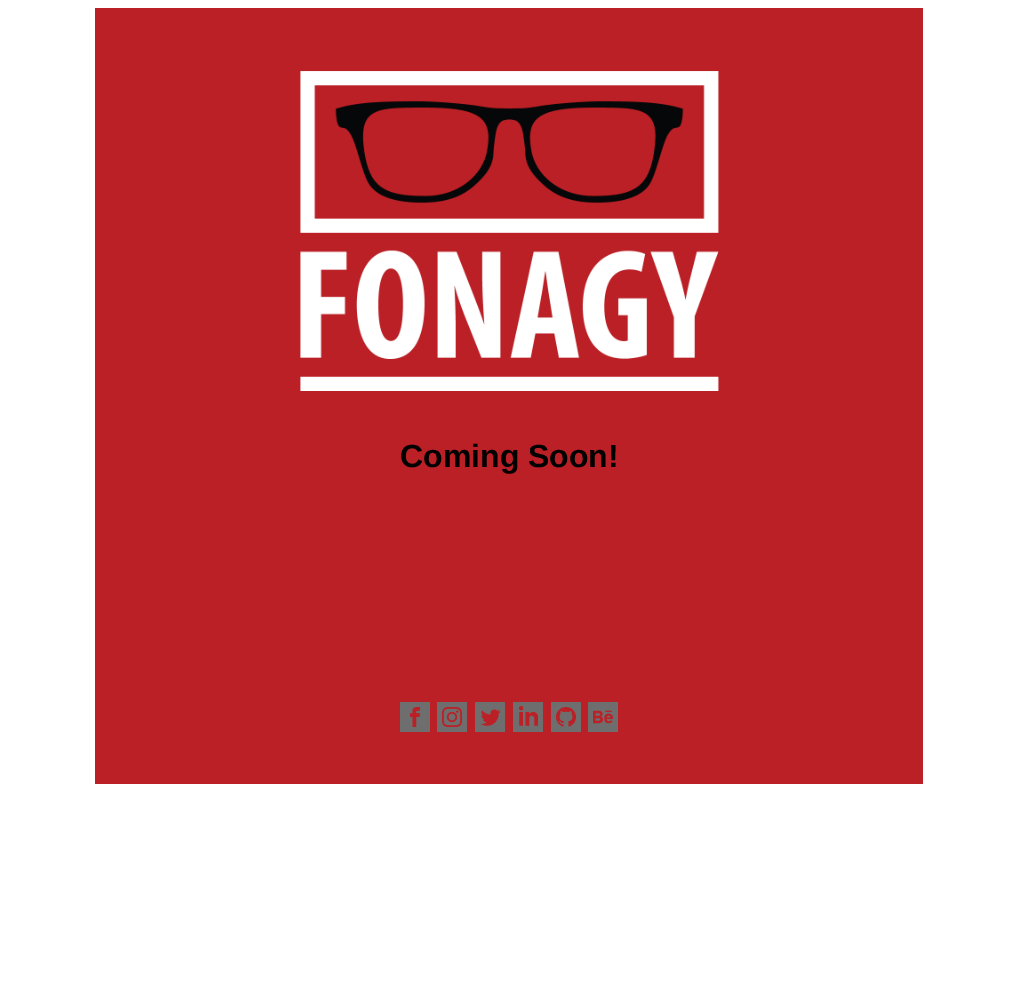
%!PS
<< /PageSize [1018 993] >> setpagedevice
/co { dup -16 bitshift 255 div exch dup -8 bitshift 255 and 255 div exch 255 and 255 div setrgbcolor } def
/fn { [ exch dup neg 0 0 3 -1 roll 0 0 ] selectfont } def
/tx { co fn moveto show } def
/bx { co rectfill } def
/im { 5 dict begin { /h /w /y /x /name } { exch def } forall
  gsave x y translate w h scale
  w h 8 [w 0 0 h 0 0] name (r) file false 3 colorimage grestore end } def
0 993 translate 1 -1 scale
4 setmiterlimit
0 0 1018 993 16#FFFFFF bx
95 8 828 776 16#BA2025 bx
(media/1.raw) 300 71 419 320 im
(media/2.raw) 400 702 30 30 im
(media/3.raw) 437 702 30 30 im
(media/4.raw) 475 702 30 30 im
(media/5.raw) 513 702 30 30 im
(media/6.raw) 551 702 30 30 im
(media/7.raw) 588 702 30 30 im
(Coming Soon!) 400 467 /LiberationSans-Bold 32 16#000000 tx
showpage
